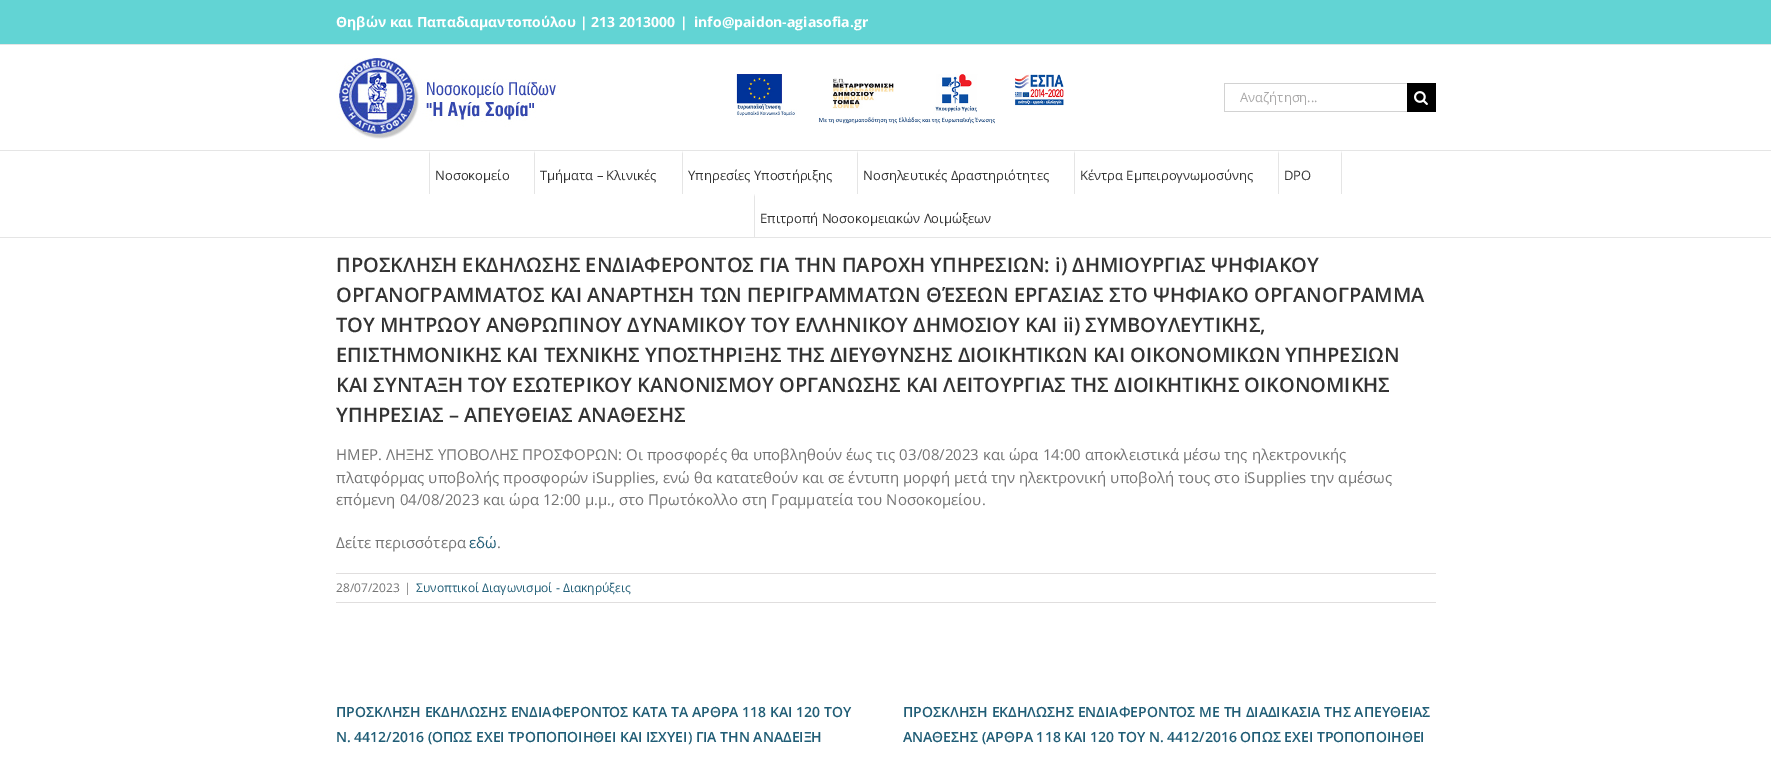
%!PS
<< /PageSize [1771 763] >> setpagedevice
/mt/moveto load def
/li/lineto load def
/cp/closepath load def
/fl/fill load def
/co { dup -16 bitshift 255 div exch dup -8 bitshift 255 and 255 div exch 255 and 255 div setrgbcolor } def
/fn { [ exch dup neg 0 0 3 -1 roll 0 0 ] selectfont } def
/tx { co fn moveto show } def
/bx { co rectfill } def
/im { 5 dict begin { /h /w /y /x /name } { exch def } forall
  gsave x y translate w h scale
  w h 8 [w 0 0 h 0 0] name (r) file false 3 colorimage grestore end } def
0 763 translate 1 -1 scale
4 setmiterlimit
0 0 1771 763 16#FFFFFF bx
0 0 1771 44 16#62D4D4 bx
0 44 1771 1 16#E5E5E5 bx
0 150 1771 1 16#E5E5E5 bx
(media/1.raw) 336 58 221 81 im
(media/2.raw) 736 74 328 50 im
1224 83 183 1 16#D2D2D2 bx
1224 111 183 1 16#D2D2D2 bx
1224 83 1 29 16#D2D2D2 bx
1407 83 29 29 16#000000 bx
(media/3.raw) 1414 91 14 14 im
0 237 1771 1 16#E5E5E5 bx
429 194 mt 429 151 li 430 154 li 430 194 li cp fl
534 194 mt 534 151 li 535 154 li 535 194 li cp fl
682 194 mt 682 151 li 683 154 li 683 194 li cp fl
857 194 mt 857 151 li 858 154 li 858 194 li cp fl
1074 194 mt 1074 151 li 1075 154 li 1075 194 li cp fl
1342 151 mt 1342 194 li 1341 194 li 1341 154 li cp fl
1278 194 mt 1278 151 li 1279 154 li 1279 194 li cp fl
754 237 mt 754 194 li 755 197 li 755 237 li cp fl
336 573 1100 1 16#E0DEDE bx
336 602 1100 1 16#E0DEDE bx
(Θηβών και Παπαδιαμαντοπούλου | 213 2013000) 336 27 /OpenSans-Bold 14 16#FFFFFF tx
(|) 680 27 /OpenSans-Bold 14 16#FFFFFF tx
(info@paidon-agiasofia.gr) 694 27 /OpenSans-Bold 14 16#FFFFFF tx
(Αναζήτηση...) 1240 102 /OpenSans-Regular 13 16#AAA9A9 tx
(Νοσοκομείο) 435 180 /OpenSans-Regular 13 16#333333 tx
(Τμήματα – Κλινικές) 540 180 /OpenSans-Regular 13 16#333333 tx
(Υπηρεσίες Υποστήριξης) 688 180 /OpenSans-Regular 13 16#333333 tx
(Νοσηλευτικές Δραστηριότητες) 863 180 /OpenSans-Regular 13 16#333333 tx
(Κέντρα Εμπειρογνωμοσύνης) 1080 180 /OpenSans-Regular 13 16#333333 tx
(DPO) 1284 180 /OpenSans-Regular 13 16#333333 tx
(Επιτροπή Νοσοκομειακών Λοιμώξεων) 760 223 /OpenSans-Regular 13 16#333333 tx
(ΠΡΟΣΚΛΗΣΗ ΕΚΔΗΛΩΣΗΣ ΕΝΔΙΑΦΕΡΟΝΤΟΣ ΓΙΑ ΤΗΝ ΠΑΡΟΧΗ ΥΠΗΡΕΣΙΩΝ: i\) ΔΗΜΙΟΥΡΓΙΑΣ ΨΗΦΙΑΚΟΥ) 336 272 /OpenSans-SemiBold 20 16#333333 tx
(ΟΡΓΑΝΟΓΡΑΜΜΑΤΟΣ ΚΑΙ ΑΝΑΡΤΗΣΗ ΤΩΝ ΠΕΡΙΓΡΑΜΜΑΤΩΝ ΘΈΣΕΩΝ ΕΡΓΑΣΙΑΣ ΣΤΟ ΨΗΦΙΑΚΟ ΟΡΓΑΝΟΓΡΑΜΜΑ) 336 302 /OpenSans-SemiBold 20 16#333333 tx
(ΤΟΥ ΜΗΤΡΩΟΥ ΑΝΘΡΩΠΙΝΟΥ ΔΥΝΑΜΙΚΟΥ ΤΟΥ ΕΛΛΗΝΙΚΟΥ ΔΗΜΟΣΙΟΥ ΚΑΙ ii\) ΣΥΜΒΟΥΛΕΥΤΙΚΗΣ,) 336 332 /OpenSans-SemiBold 20 16#333333 tx
(ΕΠΙΣΤΗΜΟΝΙΚΗΣ ΚΑΙ ΤΕΧΝΙΚΗΣ ΥΠΟΣΤΗΡΙΞΗΣ ΤΗΣ ΔΙΕΥΘΥΝΣΗΣ ΔΙΟΙΚΗΤΙΚΩΝ ΚΑΙ ΟΙΚΟΝΟΜΙΚΩΝ ΥΠΗΡΕΣΙΩΝ) 336 362 /OpenSans-SemiBold 20 16#333333 tx
(ΚΑΙ ΣΥΝΤΑΞΗ ΤΟΥ ΕΣΩΤΕΡΙΚΟΥ ΚΑΝΟΝΙΣΜΟΥ ΟΡΓΑΝΩΣΗΣ ΚΑΙ ΛΕΙΤΟΥΡΓΙΑΣ ΤΗΣ ΔΙΟΙΚΗΤΙΚΗΣ ΟΙΚΟΝΟΜΙΚΗΣ) 336 392 /OpenSans-SemiBold 20 16#333333 tx
(ΥΠΗΡΕΣΙΑΣ – ΑΠΕΥΘΕΙΑΣ ΑΝΑΘΕΣΗΣ) 336 422 /OpenSans-SemiBold 20 16#333333 tx
(ΗΜΕΡ. ΛΗΞΗΣ ΥΠΟΒΟΛΗΣ ΠΡΟΣΦΟΡΩΝ: Οι προσφορές θα υποβληθούν έως τις 03/08/2023 και ώρα 14:00 αποκλειστικά μέσω της ηλεκτρονικής) 336 460 /OpenSans-Regular 15 16#747474 tx
(πλατφόρμας υποβολής προσφορών iSupplies, ενώ θα κατατεθούν και σε έντυπη μορφή μετά την ηλεκτρονική υποβολή τους στο iSupplies την αμέσως) 336 483 /OpenSans-Regular 15 16#747474 tx
(επόμενη 04/08/2023 και ώρα 12:00 μ.μ., στο Πρωτόκολλο στη Γραμματεία του Νοσοκομείου.) 336 505 /OpenSans-Regular 15 16#747474 tx
(Δείτε περισσότερα) 336 548 /OpenSans-Regular 15 16#747474 tx
(εδώ) 469 548 /OpenSans-Regular 15 16#205D76 tx
(.) 497 548 /OpenSans-Regular 15 16#747474 tx
(28/07/2023) 336 592 /OpenSans-Regular 12 16#747474 tx
(|) 404 592 /OpenSans-Regular 12 16#747474 tx
(Συνοπτικοί Διαγωνισμοί - Διακηρύξεις) 416 592 /OpenSans-Regular 12 16#205D76 tx
(ΠΡΟΣΚΛΗΣΗ ΕΚΔΗΛΩΣΗΣ ΕΝΔΙΑΦΕΡΟΝΤΟΣ ΚΑΤΑ ΤΑ ΑΡΘΡΑ 118 ΚΑΙ 120 ΤΟΥ) 336 717 /OpenSans-SemiBold 14 16#205D76 tx
(Ν. 4412/2016 \(ΟΠΩΣ ΕΧΕΙ ΤΡΟΠΟΠΟΙΗΘΕΙ ΚΑΙ ΙΣΧΥΕΙ\) ΓΙΑ ΤΗΝ ΑΝΑΔΕΙΞΗ) 336 742 /OpenSans-SemiBold 14 16#205D76 tx
(ΠΡΟΣΚΛΗΣΗ ΕΚΔΗΛΩΣΗΣ ΕΝΔΙΑΦΕΡΟΝΤΟΣ ΜΕ ΤΗ ΔΙΑΔΙΚΑΣΙΑ ΤΗΣ ΑΠΕΥΘΕΙΑΣ) 903 717 /OpenSans-SemiBold 14 16#205D76 tx
(ΑΝΑΘΕΣΗΣ \(ΑΡΘΡΑ 118 ΚΑΙ 120 ΤΟΥ Ν. 4412/2016 ΟΠΩΣ ΕΧΕΙ ΤΡΟΠΟΠΟΙΗΘΕΙ) 903 742 /OpenSans-SemiBold 14 16#205D76 tx
showpage
